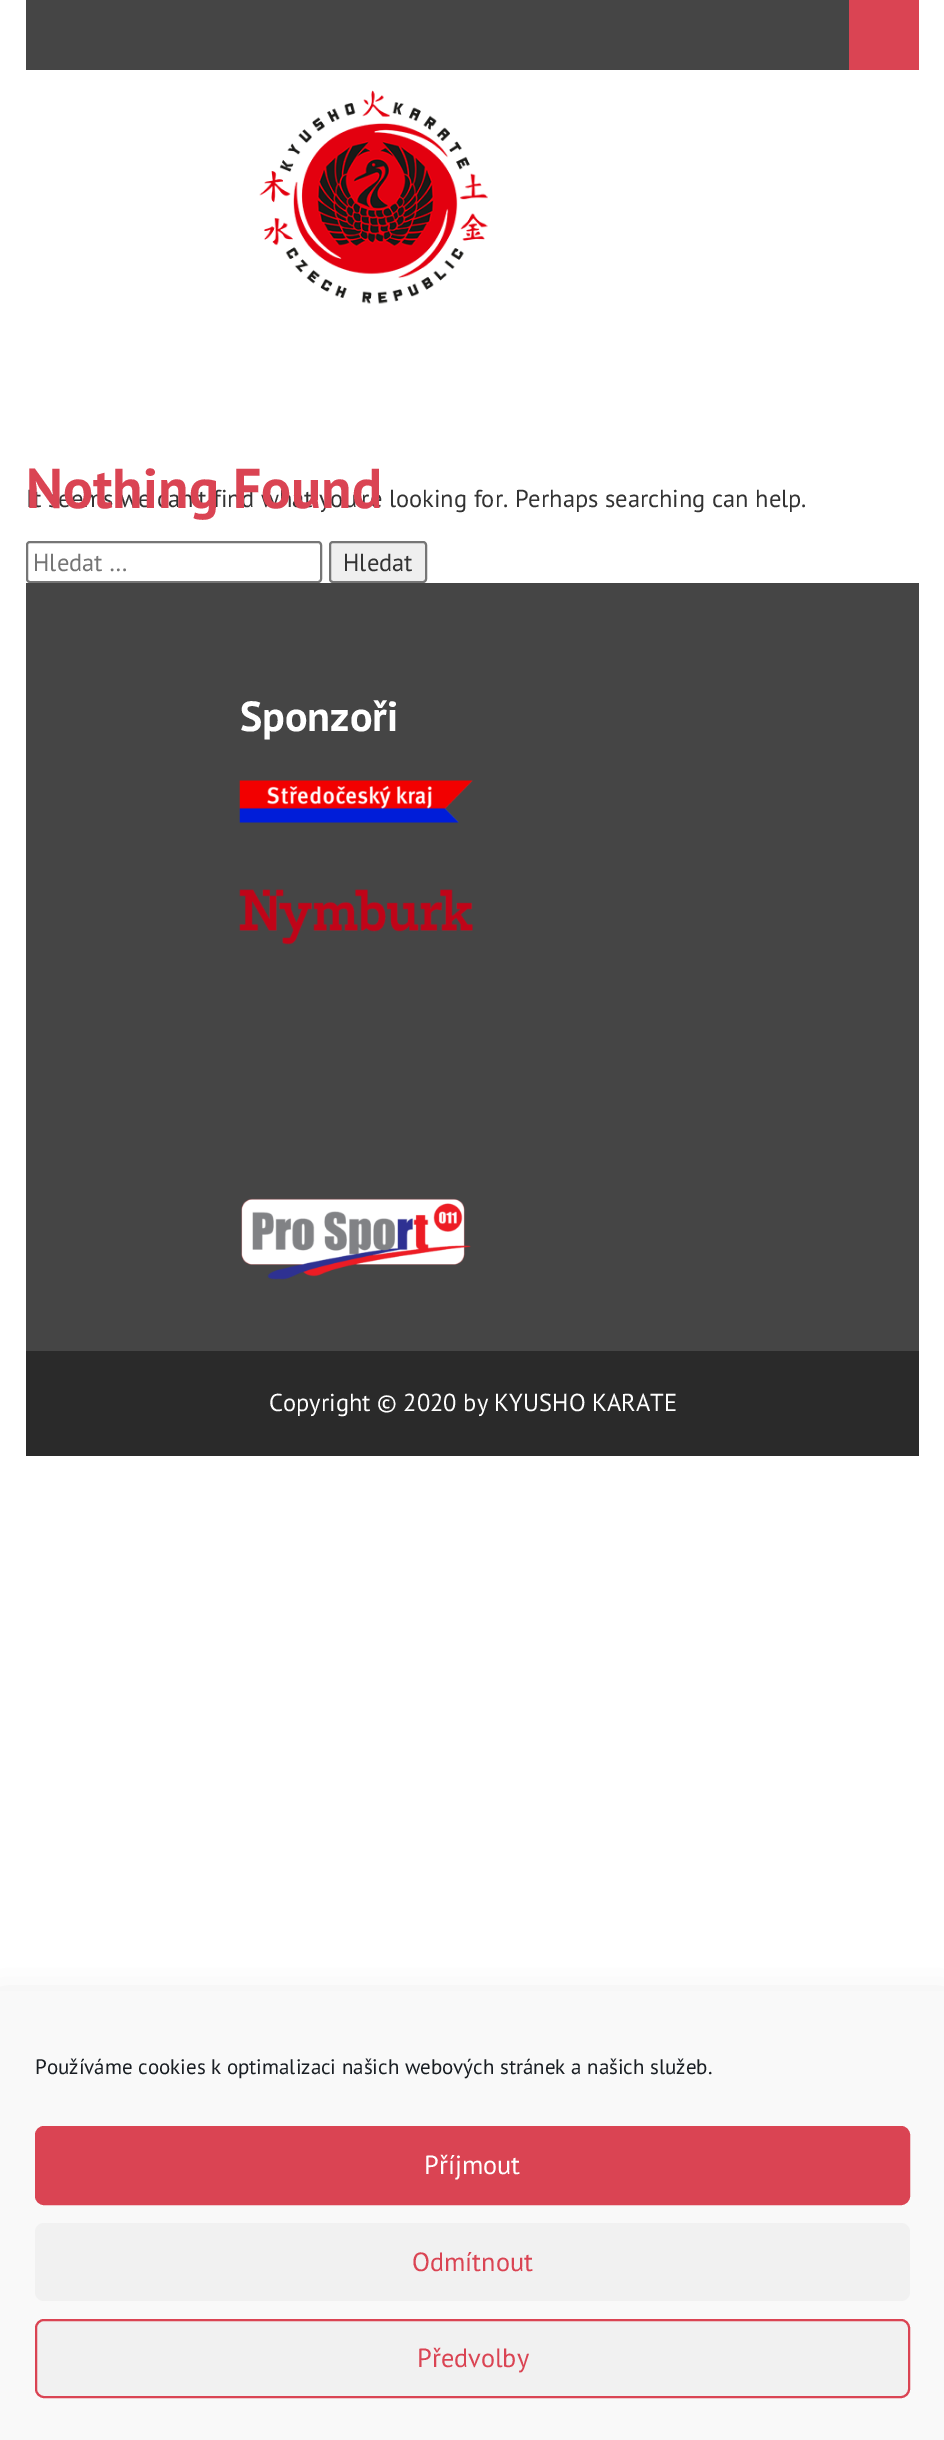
%!PS
<< /PageSize [944 2440] /PageUsesTransparency true >> setpagedevice
/fl/fill load def
/st/stroke load def
/gs/gsave load def
/gr/grestore load def
/lw/setlinewidth load def
/co { dup -16 bitshift 255 div exch dup -8 bitshift 255 and 255 div exch 255 and 255 div setrgbcolor } def
/fn { [ exch dup neg 0 0 3 -1 roll 0 0 ] selectfont } def
/tx { co fn moveto show } def
/bx { co rectfill } def
/al { dup .setfillconstantalpha .setstrokeconstantalpha } def
/rr { 5 dict begin { /r /h /w /y /x } { exch def } forall
  x r add y moveto x w add y 2 copy h add r arct x w add y h add x 1 index r arct
  x y h add x y r arct x y 2 copy exch w add exch r arct closepath end } def
/sh { 12 dict begin { /a /b /q /h /w /y /x } { exch def } forall gsave /was 0 def
  9 -2 -9 { dup b mul 4 div /e exch def 1 sub .425 mul 2.718 exch exp 1 add a .99 .min exch div /now exch def
    1 1 now sub 1 was sub div sub al /was now def
    w h .min e 2 mul add 0 gt { x e sub y e sub w e 2 mul add h e 2 mul add
      q e add b .6 mul add w h .min 2 div e add .min 0 .max rr fill } if } for grestore end } def
/im { 5 dict begin { /h /w /y /x /name } { exch def } forall
  gsave x y translate w h scale
  w h 8 [w 0 0 h 0 0] name (r) file false 3 colorimage grestore end } def
0 .pushpdf14devicefilter
0 2440 translate 1 -1 scale
4 setmiterlimit
0 0 944 2440 16#FFFFFF bx
26 0 823 70 16#454545 bx
849 0 70 70 16#DA4453 bx
(media/1.raw) 259 90 229 214 im
16#767676 co
2 lw
27 542 294 40 3 rr st
16#EFEFEF co
330 542 96 40 3 rr gs fl gr
16#767676 co
st
26 583 893 768 16#454545 bx
(media/2.raw) 239 780 234 43 im
(media/3.raw) 239 889 234 56 im
(media/4.raw) 241 1198 230 82 im
26 1351 893 105 16#2A2A2A bx
16#000000 co
0 2007 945 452 0 17.5 .19 sh
0 1991 944 449 16#F9F9F9 bx
16#DA4453 co
36 2127 873 77 8 rr gs fl gr
st
16#F1F1F1 co
35 2223 875 78 9 rr fl
36 2320 873 77 8 rr gs fl gr
16#DA4453 co
st
(It seems we can’t find what you’re looking for. Perhaps searching can help.) 26 507 /PTSans-Regular 24.5 16#333333 tx
(Nothing Found) 26 508 /PTSans-Bold 56 16#DA4453 tx
(Hledat …) 33 571 /PTSans-Regular 24.5 16#757575 tx
(Hledat) 343 571 /PTSans-Regular 24.5 16#333333 tx
(Sponzoři) 240 731 /PTSans-Bold 42 16#FFFFFF tx
(Copyright © 2020 by KYUSHO KARATE) 269 1411 /PTSans-Regular 24.5 16#FFFFFF tx
(Používáme cookies k optimalizaci našich webových stránek a našich služeb.) 35 2074 /PTSans-Regular 21 16#191E23 tx
(Příjmout) 424 2174 /PTSans-Regular 26.25 16#FFFFFF tx
(Odmítnout) 412 2271 /PTSans-Regular 26.25 16#DA4453 tx
(Předvolby) 417 2367 /PTSans-Regular 26.25 16#DA4453 tx
.poppdf14devicefilter showpage
